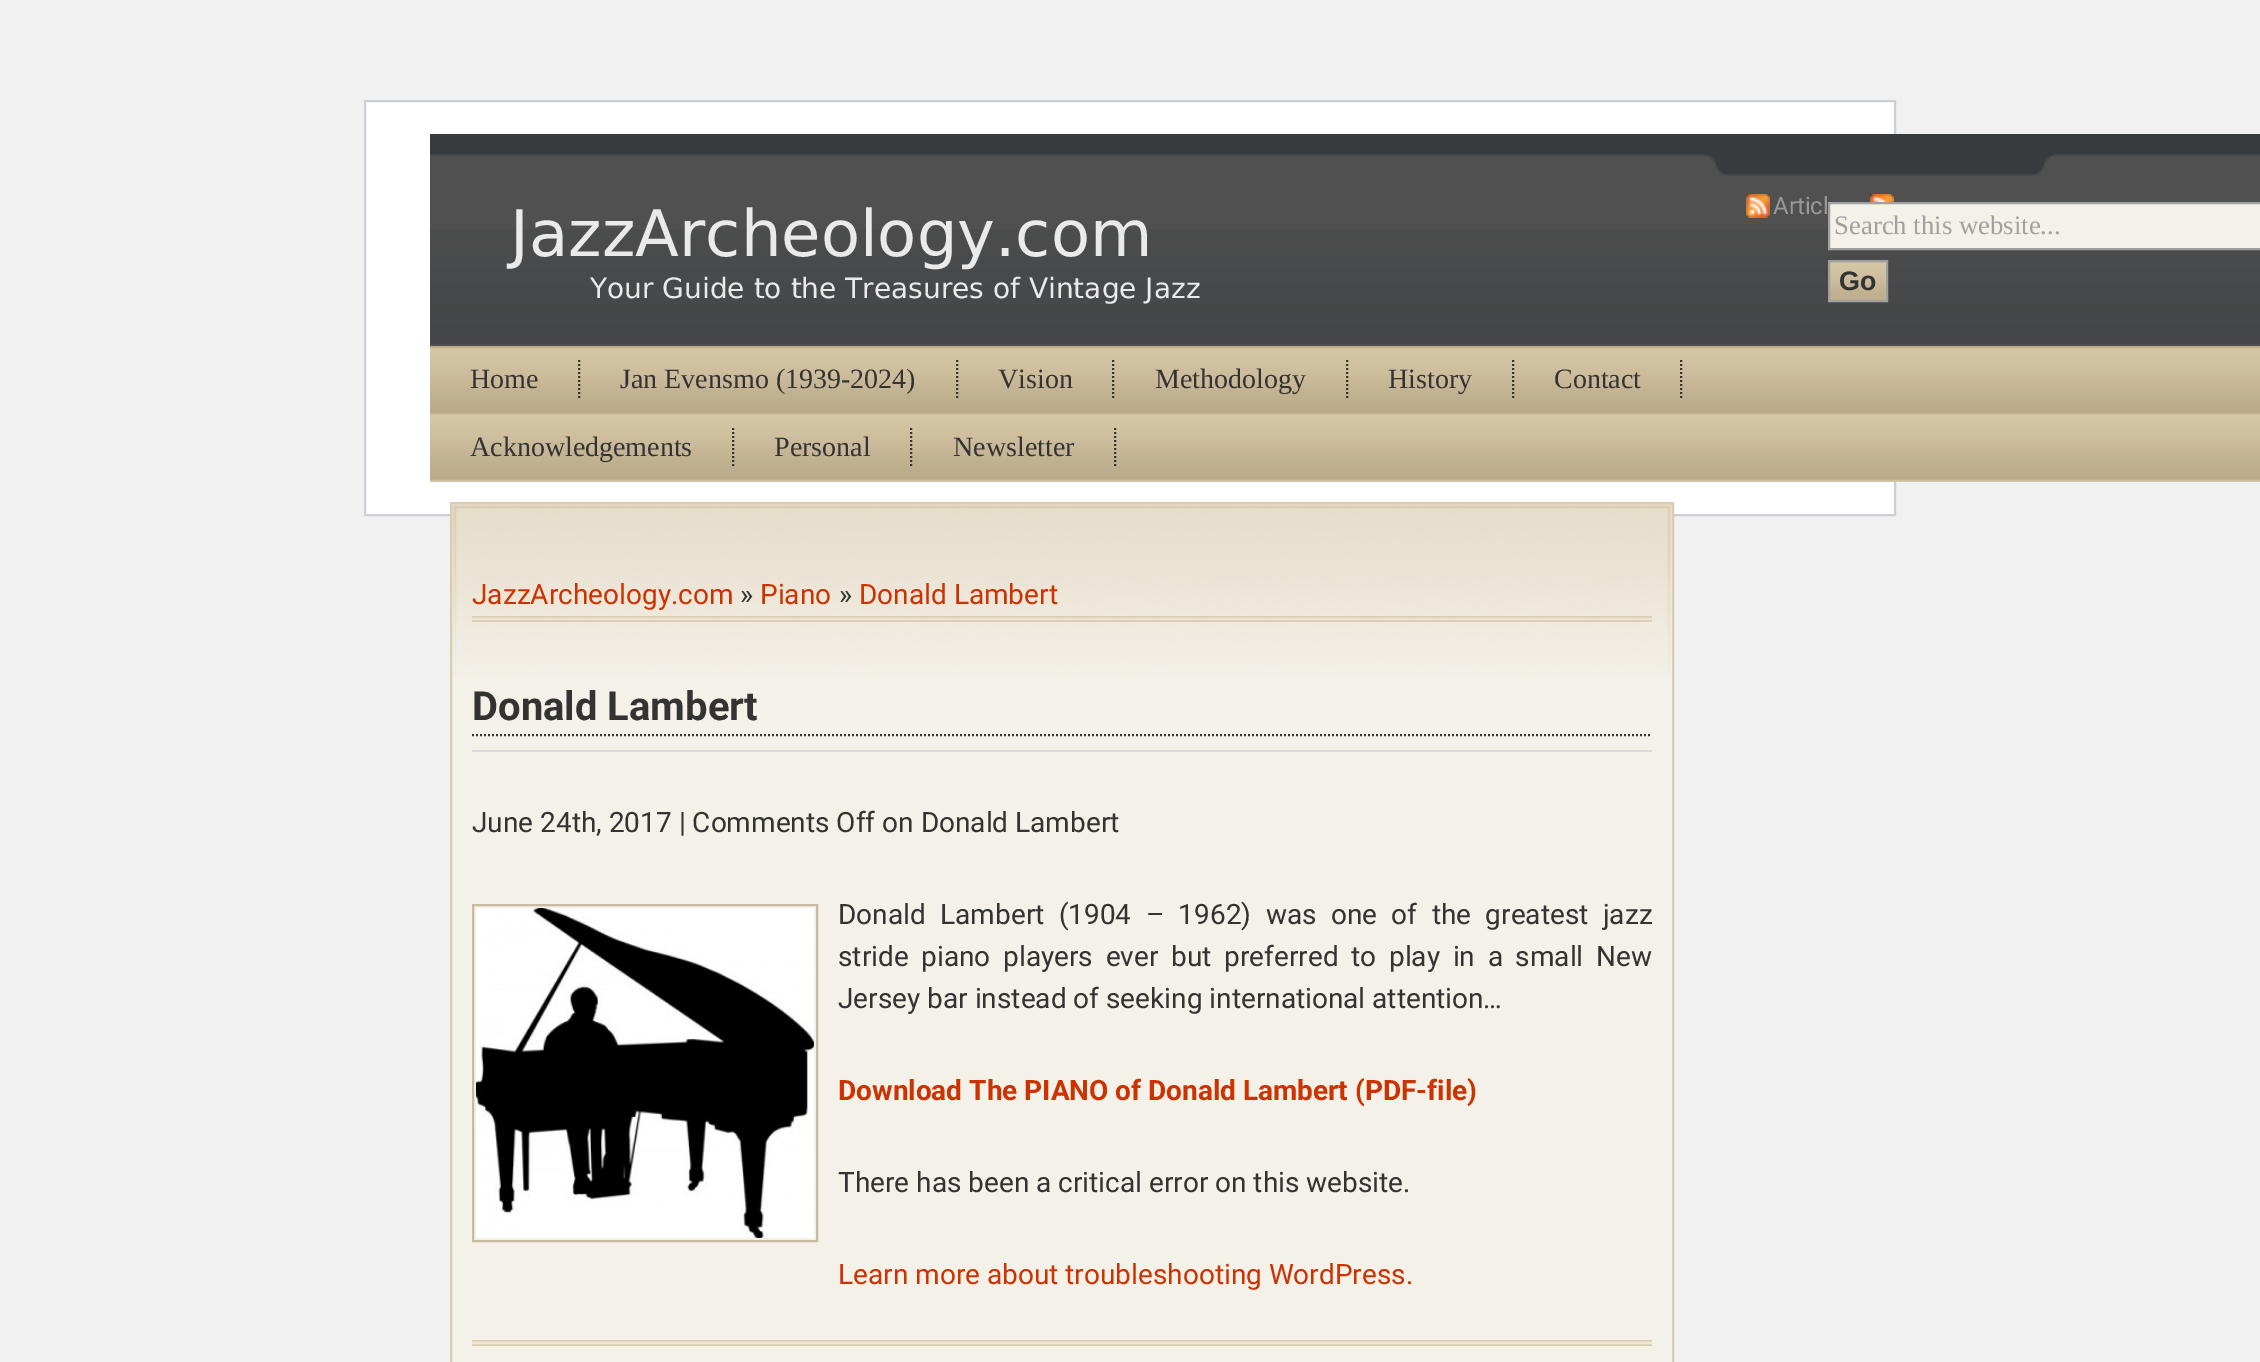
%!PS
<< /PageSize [2260 1362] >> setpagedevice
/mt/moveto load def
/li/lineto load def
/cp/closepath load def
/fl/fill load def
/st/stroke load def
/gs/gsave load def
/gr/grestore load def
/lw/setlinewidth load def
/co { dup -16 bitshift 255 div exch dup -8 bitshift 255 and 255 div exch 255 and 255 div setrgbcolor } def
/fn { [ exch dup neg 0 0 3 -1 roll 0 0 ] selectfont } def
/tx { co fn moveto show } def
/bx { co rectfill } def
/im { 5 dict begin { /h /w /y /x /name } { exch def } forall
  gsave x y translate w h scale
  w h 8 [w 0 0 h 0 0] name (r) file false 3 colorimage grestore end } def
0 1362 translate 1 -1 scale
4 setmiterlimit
0 0 2260 1362 16#F1F1F1 bx
16#FFFFFF co
365 101 mt 1895 101 li 1895 515 li 365 515 li cp gs fl gr
16#CCD0D4 co
2 lw
st
430 134 1830 20 16#373B3D bx
430 154 1830 2 16#444647 bx
430 156 1830 190 16#505050 bx
(media/1.raw) 1704 154 350 22 im
(media/2.raw) 1746 194 24 24 im
(media/3.raw) 1870 194 24 8 im
(media/4.raw) 430 229 1830 115 im
16#F4F1E9 co
1829 203 mt 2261 203 li 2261 249 li 1829 249 li cp gs fl gr
16#A0A0A0 co
st
(media/5.raw) 1830 262 56 38 im
1829 261 58 40 rectstroke
430 481 1830 1 16#D5C6A6 bx
(media/6.raw) 430 346 1830 135 im
16#333333 co
[2 2] 0 setdash
579 360 mt 579 400 li st
957 360 mt 957 400 li st
1113 360 mt 1113 400 li st
1347 360 mt 1347 400 li st
1513 360 mt 1513 400 li st
1681 360 mt 1681 400 li st
733 428 mt 733 468 li st
911 428 mt 911 468 li st
1115 428 mt 1115 468 li st
452 676 1220 686 16#F4F1E9 bx
(media/7.raw) 452 504 1220 172 im
16#DACCB0 co
[] 0 setdash
451 503 1222 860 rectstroke
(media/8.raw) 472 616 1180 6 im
(media/9.raw) 472 1340 1180 6 im
472 750 1180 2 16#DADADA bx
16#333333 co
[2 2] 0 setdash
472 735 mt 1652 735 li st
16#C9BBA0 co
[] 0 setdash
473 905 344 336 rectstroke
(media/10.raw) 476 908 338 330 im
(Articl) 1773 214 /Roboto-Regular 24 16#999999 tx
(JazzArcheology.com) 510 256 /DejaVuSans-Regular 64 16#EAEAEA tx
(Search this website...) 1834 234 /LiberationSerif-Regular 26.75 16#A0A0A0 tx
(Go) 1839 290 /LiberationSans-Bold 26.75 16#333333 tx
(Your Guide to the Treasures of Vintage Jazz) 590 298 /DejaVuSans-Regular 28 16#EAEAEA tx
(Home) 470 388 /LiberationSerif-Regular 28 16#333333 tx
(Jan Evensmo \(1939-2024\)) 620 388 /LiberationSerif-Regular 28 16#333333 tx
(Vision) 998 388 /LiberationSerif-Regular 28 16#333333 tx
(Methodology) 1155 388 /LiberationSerif-Regular 28 16#333333 tx
(History) 1388 388 /LiberationSerif-Regular 28 16#333333 tx
(Contact) 1554 388 /LiberationSerif-Regular 28 16#333333 tx
(Acknowledgements) 470 456 /LiberationSerif-Regular 28 16#333333 tx
(Personal) 774 456 /LiberationSerif-Regular 28 16#333333 tx
(Newsletter) 953 456 /LiberationSerif-Regular 28 16#333333 tx
(JazzArcheology.com) 472 604 /Roboto-Regular 28 16#CC3300 tx
(») 740 604 /Roboto-Regular 28 16#333333 tx
(Piano) 760 604 /Roboto-Regular 28 16#CC3300 tx
(») 839 604 /Roboto-Regular 28 16#333333 tx
(Donald Lambert) 859 604 /Roboto-Regular 28 16#CC3300 tx
(Donald Lambert) 472 720 /Roboto-Bold 40 16#333333 tx
(June 24th, 2017 | Comments Off on Donald Lambert) 472 832 /Roboto-Regular 28 16#333333 tx
838 924 mt 7.5 0 32 (Donald Lambert \(1904 – 1962\) was one of the greatest jazz) widthshow
838 966 mt 5.75 0 32 (stride piano players ever but preferred to play in a small New) widthshow
(Jersey bar instead of seeking international attention…) 838 1008 /Roboto-Regular 28 16#333333 tx
(Download The PIANO of Donald Lambert \(PDF-file\)) 838 1100 /Roboto-Bold 28 16#CC3300 tx
(There has been a critical error on this website.) 838 1192 /Roboto-Regular 28 16#333333 tx
(Learn more about troubleshooting WordPress.) 838 1284 /Roboto-Regular 28 16#CC3300 tx
showpage
